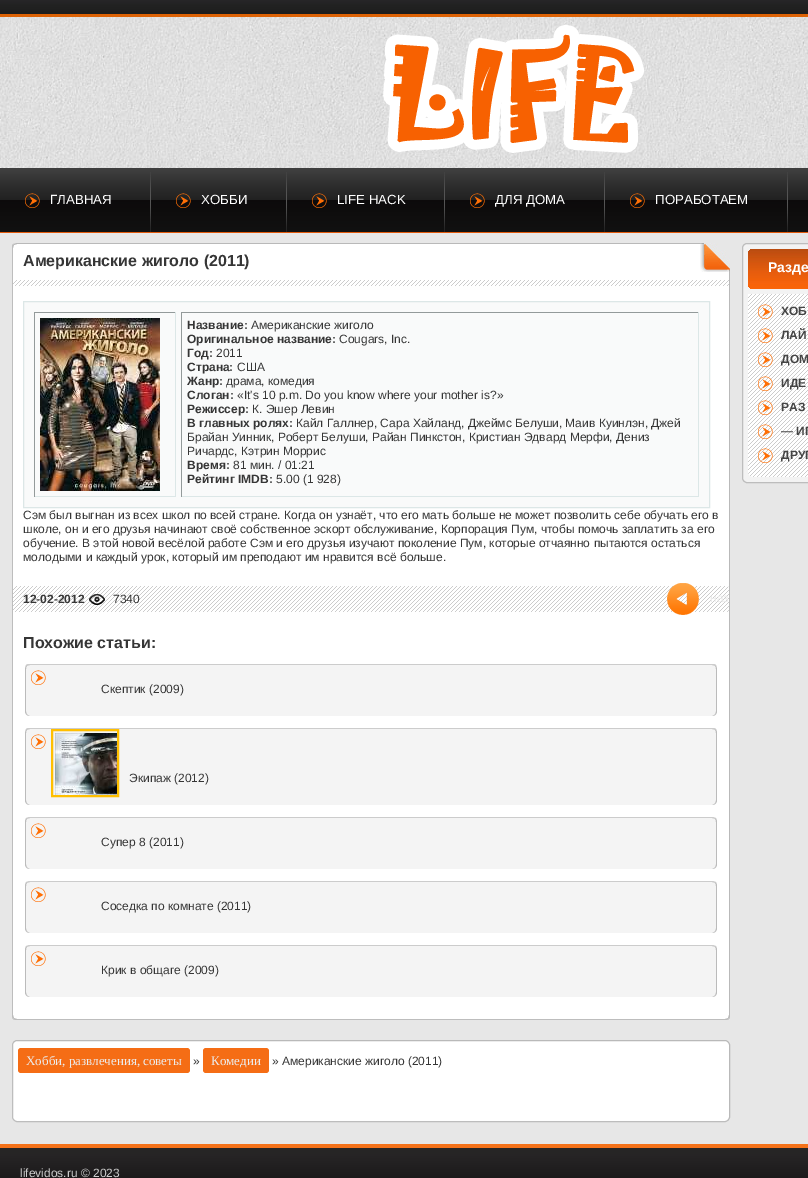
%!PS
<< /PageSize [808 1178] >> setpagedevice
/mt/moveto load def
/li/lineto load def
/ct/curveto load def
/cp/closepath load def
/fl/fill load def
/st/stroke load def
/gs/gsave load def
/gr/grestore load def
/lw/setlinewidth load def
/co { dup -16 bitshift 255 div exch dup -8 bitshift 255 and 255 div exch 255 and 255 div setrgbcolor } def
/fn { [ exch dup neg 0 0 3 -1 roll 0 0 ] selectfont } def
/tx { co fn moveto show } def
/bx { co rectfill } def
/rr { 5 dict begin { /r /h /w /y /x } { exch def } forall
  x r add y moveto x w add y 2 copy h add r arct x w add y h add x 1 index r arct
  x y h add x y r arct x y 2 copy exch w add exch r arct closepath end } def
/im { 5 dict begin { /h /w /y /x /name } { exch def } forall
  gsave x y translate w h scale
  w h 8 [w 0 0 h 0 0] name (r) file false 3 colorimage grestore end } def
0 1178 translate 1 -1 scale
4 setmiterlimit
0 0 808 1178 16#FFFFFF bx
(media/1.raw) 0 17 808 151 im
gs 0 0 mt 808 0 li 808 14 li 0 14 li cp clip newpath
<< /ShadingType 2 /ColorSpace /DeviceRGB /Coords [512 -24 512 14] /Extend [true true] /Function << /FunctionType 3 /Domain [0 1] /Functions [<< /FunctionType 2 /Domain [0 1] /C0 [.239 .216 .216] /C1 [.196 .18 .176] /N 1 >> << /FunctionType 2 /Domain [0 1] /C0 [.196 .18 .176] /C1 [.161 .153 .165] /N 1 >> << /FunctionType 2 /Domain [0 1] /C0 [.161 .153 .165] /C1 [.133 .133 .133] /N 1 >> << /FunctionType 2 /Domain [0 1] /C0 [.133 .133 .133] /C1 [.114 .114 .114] /N 1 >>] /Bounds [.41 .59 .76] /Encode [0 1 0 1 0 1 0 1] >> >> shfill gr
0 14 808 3 16#DD6205 bx
(media/2.raw) 383 24 262 129 im
gs 0 168 mt 808 168 li 808 232 li 0 232 li cp clip newpath
<< /ShadingType 2 /ColorSpace /DeviceRGB /Coords [512 168 512 232] /Extend [true true] /Function << /FunctionType 3 /Domain [0 1] /Functions [<< /FunctionType 2 /Domain [0 1] /C0 [.247 .247 .247] /C1 [.239 .239 .239] /N 1 >> << /FunctionType 2 /Domain [0 1] /C0 [.239 .239 .239] /C1 [.169 .169 .169] /N 1 >> << /FunctionType 2 /Domain [0 1] /C0 [.169 .169 .169] /C1 [.133 .133 .133] /N 1 >> << /FunctionType 2 /Domain [0 1] /C0 [.133 .133 .133] /C1 [.129 .129 .129] /N 1 >> << /FunctionType 2 /Domain [0 1] /C0 [.047 .039 .043] /C1 [.067 .067 .067] /N 1 >>] /Bounds [.06 .31 .49 .5] /Encode [0 1 0 1 0 1 0 1 0 1] >> >> shfill gr
0 232 808 1 16#E25A0C bx
(media/3.raw) 150 172 1 60 im
(media/4.raw) 25 193 15 15 im
(media/3.raw) 286 172 1 60 im
(media/4.raw) 176 193 15 15 im
(media/3.raw) 444 172 1 60 im
(media/4.raw) 312 193 15 15 im
(media/3.raw) 604 172 1 60 im
(media/4.raw) 470 193 15 15 im
(media/3.raw) 787 172 1 60 im
(media/4.raw) 630 193 15 15 im
0 233 808 911 16#E7E7E7 bx
16#FFFFFF co
17 243 mt 730 243 li 730 1015 li 730 1018 728 1020 725 1020 ct 17 1020 li 14 1020 12 1018 12 1015 ct 12 248 li 12 245 14 243 17 243 ct cp fl
16#B9B9B9 co
17 243 mt 16 243 14 244 13 244 ct 14 245 li 17 244 li 729 244 li 730 243 li cp fl
730 243 mt 729 244 li 729 1015 li 728 1018 li 729 1019 li 730 1018 730 1016 730 1015 ct cp fl
16#BDBDBD co
17 1020 mt 725 1020 li 726 1020 728 1020 729 1019 ct 728 1018 li 725 1019 li 17 1019 li 14 1018 li 13 1019 li 14 1020 16 1020 17 1020 ct cp fl
12 248 mt 12 1015 li 12 1016 12 1018 13 1019 ct 14 1018 li 13 1015 li 13 248 li 14 245 li 13 244 li 12 245 12 246 12 248 ct cp fl
(media/5.raw) 700 243 30 29 im
(media/6.raw) 13 280 716 6 im
16#F9FAFA co
23.5 301.5 mt 709.5 301.5 li 709.5 507.5 li 23.5 507.5 li cp gs fl gr
16#DCE7E7 co
st
34 312 142 1 16#939A9A bx
175 312 1 185 16#DCE7E7 bx
34 496 142 1 16#DCE7E7 bx
34 312 1 185 16#939A9A bx
(media/7.raw) 40 318 120 173 im
181 312 518 1 16#939A9A bx
698 312 1 185 16#DCE7E7 bx
181 496 518 1 16#DCE7E7 bx
181 312 1 185 16#939A9A bx
(media/8.raw) 13 586 716 26 im
(media/9.raw) 89 594 16 11 im
(media/10.raw) 667 583 32 32 im
16#F4F4F4 co
30 665 mt 712 665 li 714 665 716 667 716 669 ct 716 711 li 716 714 714 716 712 716 ct 30 716 li 28 716 26 714 26 711 ct 26 669 li 26 667 28 665 30 665 ct cp fl
16#CCCCCC co
30 664 mt 28 664 27 664 26 665 ct 27 666 li 30 665 li 712 665 li 715 666 li 716 665 li 715 664 714 664 712 664 ct cp fl
16#BBBBBB co
717 711 mt 717 669 li 717 668 716 666 716 665 ct 715 666 li 716 667 716 668 716 669 ct 716 711 li 716 714 714 716 712 716 ct 715 716 717 714 717 711 ct cp fl
25 669 mt 25 711 li 25 714 27 716 30 716 ct 28 716 26 714 26 711 ct 26 669 li 26 668 26 667 27 666 ct 26 665 li 26 666 25 668 25 669 ct cp fl
(media/11.raw) 31 670 15 15 im
16#F4F4F4 co
30 729 mt 712 729 li 714 729 716 731 716 733 ct 716 800 li 716 803 714 805 712 805 ct 30 805 li 28 805 26 803 26 800 ct 26 733 li 26 731 28 729 30 729 ct cp fl
16#CCCCCC co
30 728 mt 28 728 27 728 26 729 ct 27 730 li 30 729 li 712 729 li 715 730 li 716 729 li 715 728 714 728 712 728 ct cp fl
16#BBBBBB co
717 800 mt 717 732 li 716 729 li 715 730 li 716 731 716 732 716 733 ct 716 800 li 716 803 714 805 712 805 ct 715 805 717 803 717 800 ct cp fl
25 733 mt 25 800 li 25 803 27 805 30 805 ct 28 805 26 803 26 800 ct 26 733 li 26 732 26 731 27 730 ct 26 729 li 26 730 25 732 25 733 ct cp fl
(media/11.raw) 31 734 15 15 im
16#FFBF00 co
2 lw
52 730 66 66 rectstroke
(media/12.raw) 55 733 62 62 im
16#F4F4F4 co
30 818 mt 712 818 li 714 818 716 820 716 822 ct 716 864 li 716 867 714 869 712 869 ct 30 869 li 28 869 26 867 26 864 ct 26 822 li 26 820 28 818 30 818 ct cp fl
16#CCCCCC co
30 817 mt 28 817 27 818 26 818 ct 27 819 li 30 818 li 712 818 li 715 819 li 716 818 li 715 818 714 817 712 817 ct cp fl
16#BBBBBB co
717 864 mt 717 822 li 717 820 716 819 716 818 ct 715 819 li 716 820 716 821 716 822 ct 716 864 li 716 867 714 869 712 869 ct 715 869 717 867 717 864 ct cp fl
25 822 mt 25 864 li 25 867 27 869 30 869 ct 28 869 26 867 26 864 ct 26 822 li 26 821 26 820 27 819 ct 26 818 li 26 819 25 820 25 822 ct cp fl
(media/11.raw) 31 823 15 15 im
16#F4F4F4 co
30 882 mt 712 882 li 714 882 716 884 716 886 ct 716 928 li 716 931 714 933 712 933 ct 30 933 li 28 933 26 931 26 928 ct 26 886 li 26 884 28 882 30 882 ct cp fl
16#CCCCCC co
30 881 mt 28 881 27 882 26 882 ct 27 883 li 30 882 li 712 882 li 715 883 li 716 882 li 715 882 714 881 712 881 ct cp fl
16#BBBBBB co
717 928 mt 717 886 li 717 884 716 883 716 882 ct 715 883 li 716 884 716 885 716 886 ct 716 928 li 716 931 714 933 712 933 ct 715 933 717 931 717 928 ct cp fl
25 886 mt 25 928 li 25 931 27 933 30 933 ct 28 933 26 931 26 928 ct 26 886 li 26 885 26 884 27 883 ct 26 882 li 26 883 25 884 25 886 ct cp fl
(media/11.raw) 31 887 15 15 im
16#F4F4F4 co
30 946 mt 712 946 li 714 946 716 948 716 950 ct 716 992 li 716 995 714 997 712 997 ct 30 997 li 28 997 26 995 26 992 ct 26 950 li 26 948 28 946 30 946 ct cp fl
16#CCCCCC co
30 945 mt 28 945 27 946 26 946 ct 27 947 li 30 946 li 712 946 li 715 947 li 716 946 li 715 946 714 945 712 945 ct cp fl
16#BBBBBB co
717 992 mt 717 950 li 717 948 716 947 716 946 ct 715 947 li 716 948 716 949 716 950 ct 716 992 li 716 995 714 997 712 997 ct 715 997 717 995 717 992 ct cp fl
25 950 mt 25 992 li 25 995 27 997 30 997 ct 28 997 26 995 26 992 ct 26 950 li 26 949 26 948 27 947 ct 26 946 li 26 947 25 948 25 950 ct cp fl
(media/11.raw) 31 951 15 15 im
16#FFFFFF co
12 1040 718 82 5 rr fl
16#B9B9B9 co
1 lw
14 1042 mt 14.5 1041 16 1040.5 17 1040.5 ct 725 1040.5 li 726 1040.5 727.5 1041 728 1042 ct 729 1042.5 729.5 1044 729.5 1045 ct 729.5 1117 li 729.5 1118 729 1119.5 728 1120 ct st
16#BDBDBD co
728 1120 mt 727.5 1121 726 1121.5 725 1121.5 ct 17 1121.5 li 16 1121.5 14.5 1121 14 1120 ct 13 1119.5 12.5 1118 12.5 1117 ct 12.5 1045 li 12.5 1044 13 1042.5 14 1042 ct st
16#F56D15 co
18 1048 172 25 3 rr fl
203 1048 66 25 3 rr fl
16#F3F3F3 co
742.5 243.5 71 239 4.5 rr gs fl gr
16#BDBDBD co
st
gs 748 249 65 40 5 rr clip newpath
<< /ShadingType 2 /ColorSpace /DeviceRGB /Coords [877 249 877 289] /Extend [true true] /Function << /FunctionType 3 /Domain [0 1] /Functions [<< /FunctionType 2 /Domain [0 1] /C0 [.729 .298 .067] /C1 [.733 .302 .063] /N 1 >> << /FunctionType 2 /Domain [0 1] /C0 [.733 .302 .063] /C1 [.749 .306 .071] /N 1 >> << /FunctionType 2 /Domain [0 1] /C0 [.749 .306 .071] /C1 [.749 .31 .059] /N 1 >> << /FunctionType 2 /Domain [0 1] /C0 [.749 .31 .059] /C1 [.769 .306 .067] /N 1 >> << /FunctionType 2 /Domain [0 1] /C0 [.769 .306 .067] /C1 [.765 .314 .059] /N 1 >> << /FunctionType 2 /Domain [0 1] /C0 [.765 .314 .059] /C1 [.78 .31 .063] /N 1 >> << /FunctionType 2 /Domain [0 1] /C0 [.78 .31 .063] /C1 [.765 .322 .063] /N 1 >> << /FunctionType 2 /Domain [0 1] /C0 [.765 .322 .063] /C1 [.784 .314 .067] /N 1 >> << /FunctionType 2 /Domain [0 1] /C0 [.784 .314 .067] /C1 [.784 .325 .063] /N 1 >> << /FunctionType 2 /Domain [0 1] /C0 [.784 .325 .063] /C1 [.784 .325 .063] /N 1 >> << /FunctionType 2 /Domain [0 1] /C0 [.784 .325 .063] /C1 [.804 .322 .055] /N 1 >> << /FunctionType 2 /Domain [0 1] /C0 [.804 .322 .055] /C1 [.816 .333 .067] /N 1 >> << /FunctionType 2 /Domain [0 1] /C0 [.816 .333 .067] /C1 [.82 .341 .055] /N 1 >> << /FunctionType 2 /Domain [0 1] /C0 [.82 .341 .055] /C1 [.839 .337 .059] /N 1 >> << /FunctionType 2 /Domain [0 1] /C0 [.839 .337 .059] /C1 [.871 .357 .051] /N 1 >> << /FunctionType 2 /Domain [0 1] /C0 [.871 .357 .051] /C1 [.898 .361 .055] /N 1 >> << /FunctionType 2 /Domain [0 1] /C0 [.898 .361 .055] /C1 [.933 .376 .047] /N 1 >> << /FunctionType 2 /Domain [0 1] /C0 [.941 .376 .035] /C1 [.933 .376 .039] /N 1 >> << /FunctionType 2 /Domain [0 1] /C0 [.933 .376 .039] /C1 [.945 .38 .043] /N 1 >> << /FunctionType 2 /Domain [0 1] /C0 [.945 .38 .043] /C1 [.949 .376 .039] /N 1 >> << /FunctionType 2 /Domain [0 1] /C0 [.949 .376 .039] /C1 [.957 .384 .047] /N 1 >> << /FunctionType 2 /Domain [0 1] /C0 [.957 .384 .047] /C1 [.969 .388 .051] /N 1 >> << /FunctionType 2 /Domain [0 1] /C0 [.969 .388 .051] /C1 [.969 .388 .035] /N 1 >> << /FunctionType 2 /Domain [0 1] /C0 [.969 .388 .035] /C1 [.98 .396 .035] /N 1 >>] /Bounds [.04 .06 .08 .11 .13 .14 .15 .17 .18 .21 .22 .28 .32 .34 .49 .55 .73 .75 .76 .8 .81 .86 .88] /Encode [0 1 0 1 0 1 0 1 0 1 0 1 0 1 0 1 0 1 0 1 0 1 0 1 0 1 0 1 0 1 0 1 0 1 0 1 0 1 0 1 0 1 0 1 0 1 0 1] >> >> shfill gr
(media/13.raw) 748 294 60 183 im
(media/14.raw) 758 304 15 15 im
(media/14.raw) 758 328 15 15 im
(media/14.raw) 758 352 15 15 im
(media/14.raw) 758 376 15 15 im
(media/14.raw) 758 400 15 15 im
(media/14.raw) 758 424 15 15 im
(media/14.raw) 758 448 15 15 im
gs 0 1148 mt 808 1148 li 808 1178 li 0 1178 li cp clip newpath
<< /ShadingType 2 /ColorSpace /DeviceRGB /Coords [512 1148 512 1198] /Extend [true true] /Function << /FunctionType 3 /Domain [0 1] /Functions [<< /FunctionType 2 /Domain [0 1] /C0 [.149 .149 .149] /C1 [.149 .141 .145] /N 1 >> << /FunctionType 2 /Domain [0 1] /C0 [.149 .141 .145] /C1 [.086 .078 .082] /N 1 >> << /FunctionType 2 /Domain [0 1] /C0 [.086 .078 .082] /C1 [.086 .078 .082] /N 1 >>] /Bounds [.14 .9] /Encode [0 1 0 1 0 1] >> >> shfill gr
0 1144 808 4 16#F5721A bx
(ГЛАВНАЯ) 50 204 /LiberationSans-Regular 13.25 16#FFFFFF tx
(ХОББИ) 201 204 /LiberationSans-Regular 13.25 16#FFFFFF tx
(LIFE HACK) 337 204 /LiberationSans-Regular 13.25 16#FFFFFF tx
(ДЛЯ ДОМА) 495 204 /LiberationSans-Regular 13.25 16#FFFFFF tx
(ПОРАБОТАЕМ) 655 204 /LiberationSans-Regular 13.25 16#FFFFFF tx
(Американские жиголо \(2011\)) 23 266 /LiberationSans-Bold 16 16#363636 tx
(Название:) 187 329 /LiberationSans-Bold 12 16#363636 tx
(Американские жиголо) 251 329 /LiberationSans-Regular 12 16#363636 tx
(Оригинальное название:) 187 343 /LiberationSans-Bold 12 16#363636 tx
(Cougars, Inc.) 339 343 /LiberationSans-Regular 12 16#363636 tx
(Год:) 187 357 /LiberationSans-Bold 12 16#363636 tx
(2011) 216 357 /LiberationSans-Regular 12 16#363636 tx
(Страна:) 187 371 /LiberationSans-Bold 12 16#363636 tx
(США) 237 371 /LiberationSans-Regular 12 16#363636 tx
(Жанр:) 187 385 /LiberationSans-Bold 12 16#363636 tx
(драма, комедия) 226 385 /LiberationSans-Regular 12 16#363636 tx
(Слоган:) 187 399 /LiberationSans-Bold 12 16#363636 tx
(«It's 10 p.m. Do you know where your mother is?») 237 399 /LiberationSans-Regular 12 16#363636 tx
(Режиссер:) 187 413 /LiberationSans-Bold 12 16#363636 tx
(К. Эшер Левин) 252 413 /LiberationSans-Regular 12 16#363636 tx
(В главных ролях:) 187 427 /LiberationSans-Bold 12 16#363636 tx
(Кайл Галлнер, Сара Хайланд, Джеймс Белуши, Маив Куинлэн, Джей) 296 427 /LiberationSans-Regular 12 16#363636 tx
(Брайан Уинник, Роберт Белуши, Райан Пинкстон, Кристиан Эдвард Мерфи, Дениз) 187 441 /LiberationSans-Regular 12 16#363636 tx
(Ричардс, Кэтрин Моррис) 187 455 /LiberationSans-Regular 12 16#363636 tx
(Время:) 187 469 /LiberationSans-Bold 12 16#363636 tx
(81 мин. / 01:21) 233 469 /LiberationSans-Regular 12 16#363636 tx
(Рейтинг IMDB:) 187 483 /LiberationSans-Bold 12 16#363636 tx
(5.00 \(1 928\)) 276 483 /LiberationSans-Regular 12 16#363636 tx
(Сэм был выгнан из всех школ по всей стране. Когда он узнаёт, что его мать больше не может позволить себе обучать его в) 23 519 /LiberationSans-Regular 12 16#363636 tx
(школе, он и его друзья начинают своё собственное эскорт обслуживание, Корпорация Пум, чтобы помочь заплатить за его) 23 533 /LiberationSans-Regular 12 16#363636 tx
(обучение. В этой новой весёлой работе Сэм и его друзья изучают поколение Пум, которые отчаянно пытаются остаться) 23 547 /LiberationSans-Regular 12 16#363636 tx
(молодыми и каждый урок, который им преподают им нравится всё больше.) 23 561 /LiberationSans-Regular 12 16#363636 tx
(12-02-2012) 23 603 /LiberationSans-Bold 12 16#363636 tx
(7340) 113 603 /LiberationSans-Regular 12 16#363636 tx
(наз) 710 602 /LiberationSans-Regular 12 16#ECECEC tx
(Похожие статьи:) 23 648 /LiberationSans-Bold 16 16#363636 tx
(Скептик \(2009\)) 101 693 /LiberationSans-Regular 12 16#363636 tx
(Экипаж \(2012\)) 129 782 /LiberationSans-Regular 12 16#363636 tx
(Супер 8 \(2011\)) 101 846 /LiberationSans-Regular 12 16#363636 tx
(Соседка по комнате \(2011\)) 101 910 /LiberationSans-Regular 12 16#363636 tx
(Крик в общаге \(2009\)) 101 974 /LiberationSans-Regular 12 16#363636 tx
(Хобби, развлечения, советы) 26 1065 /LiberationSerif-Regular 13 16#ECECEC tx
(») 193 1065 /LiberationSans-Regular 12 16#363636 tx
(Комедии) 211 1065 /LiberationSerif-Regular 13 16#ECECEC tx
(» Американские жиголо \(2011\)) 272 1065 /LiberationSans-Regular 12 16#363636 tx
(Разде) 768 272 /LiberationSans-Bold 14 16#FFFFFF tx
(ХОБ) 781 315 /LiberationSans-Bold 12 16#444444 tx
(ЛАЙ) 781 339 /LiberationSans-Bold 12 16#444444 tx
(ДОМ) 781 363 /LiberationSans-Bold 12 16#444444 tx
(ИДЕ) 781 387 /LiberationSans-Bold 12 16#444444 tx
(РАЗ) 781 411 /LiberationSans-Bold 12 16#444444 tx
(— ИГ) 781 435 /LiberationSans-Bold 12 16#444444 tx
(ДРУГ) 781 459 /LiberationSans-Bold 12 16#444444 tx
(lifevidos.ru © 2023) 20 1177 /LiberationSans-Regular 12 16#CCCCCC tx
showpage
